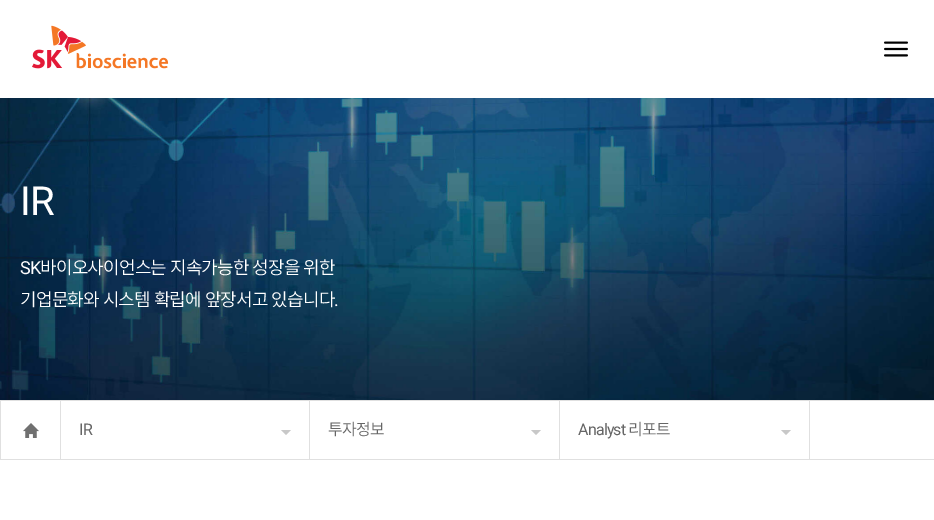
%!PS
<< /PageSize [934 520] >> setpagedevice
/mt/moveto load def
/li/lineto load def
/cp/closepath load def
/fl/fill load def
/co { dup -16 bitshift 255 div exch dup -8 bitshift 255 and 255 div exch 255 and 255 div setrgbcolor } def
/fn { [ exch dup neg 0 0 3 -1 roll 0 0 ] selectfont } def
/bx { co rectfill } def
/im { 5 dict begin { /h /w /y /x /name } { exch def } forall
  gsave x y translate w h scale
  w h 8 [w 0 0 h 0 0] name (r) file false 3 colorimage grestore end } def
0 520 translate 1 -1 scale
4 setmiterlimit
0 0 934 520 16#FFFFFF bx
(media/1.raw) 32 25 137 44 im
(media/2.raw) 884 41 24 16 im
(media/3.raw) 0 98 934 302 im
0 400 934 1 16#E0E0E0 bx
0 459 934 1 16#E0E0E0 bx
0 401 1 58 16#E0E0E0 bx
(media/4.raw) 23 423 16 15 im
309 401 1 58 16#E0E0E0 bx
60 401 1 58 16#E0E0E0 bx
16#C8C8C8 co
281 430 mt 291 430 li 286 435 li cp fl
559 401 1 58 16#E0E0E0 bx
16#C8C8C8 co
531 430 mt 541 430 li 536 435 li cp fl
809 401 1 58 16#E0E0E0 bx
16#C8C8C8 co
781 430 mt 791 430 li 786 435 li cp fl
/Roboto-Regular 40 fn
16#FFFFFF co
20 215 mt -.8 0 (IR) ashow
/Roboto-Regular 18 fn
20 274 mt -.8 0 (SK) ashow
/NotoSansCJKKR-Light 18 fn
40 274 mt .5 0 32 -.8 0 (바이오사이언스는 지속가능한 성장을 위한) awidthshow
20 306 mt .5 0 32 -.8 0 (기업문화와 시스템 확립에 앞장서고 있습니다) awidthshow
/Roboto-Regular 18 fn
334 306 mt -.8 0 (.) ashow
/Roboto-Regular 16 fn
16#666666 co
79 435 mt -.8 0 (IR) ashow
/NotoSansCJKKR-Light 16 fn
328 435 mt -.8 0 (투자정보) ashow
/Roboto-Regular 16 fn
578 435 mt -.8 0 (Analyst) ashow
/NotoSansCJKKR-Light 16 fn
628 435 mt -.8 0 (리포트) ashow
showpage
